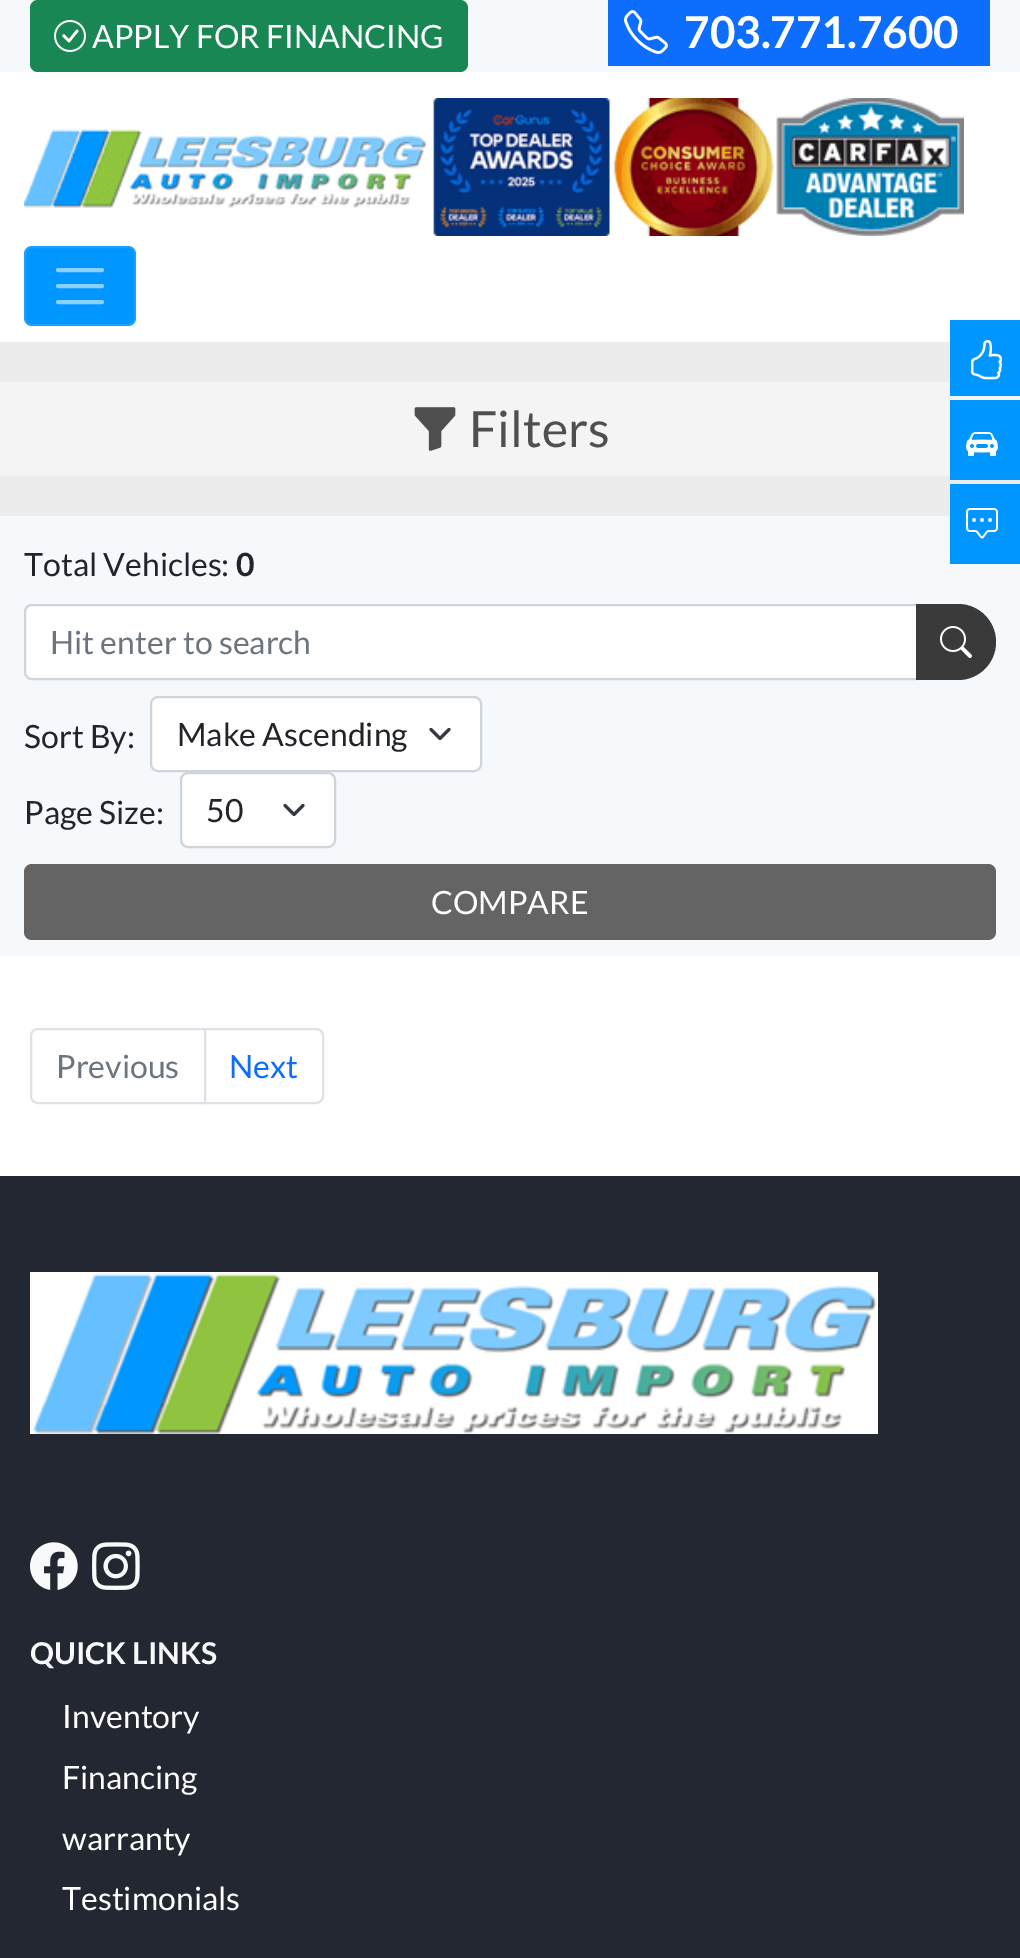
%!PS
<< /PageSize [1020 1958] /PageUsesTransparency true >> setpagedevice
/mt/moveto load def
/li/lineto load def
/ct/curveto load def
/cp/closepath load def
/fl/fill load def
/st/stroke load def
/gs/gsave load def
/gr/grestore load def
/lw/setlinewidth load def
/co { dup -16 bitshift 255 div exch dup -8 bitshift 255 and 255 div exch 255 and 255 div setrgbcolor } def
/fn { [ exch dup neg 0 0 3 -1 roll 0 0 ] selectfont } def
/tx { co fn moveto show } def
/bx { co rectfill } def
/al { dup .setfillconstantalpha .setstrokeconstantalpha } def
/rr { 5 dict begin { /r /h /w /y /x } { exch def } forall
  x r add y moveto x w add y 2 copy h add r arct x w add y h add x 1 index r arct
  x y h add x y r arct x y 2 copy exch w add exch r arct closepath end } def
/im { 5 dict begin { /h /w /y /x /name } { exch def } forall
  gsave x y translate w h scale
  w h 8 [w 0 0 h 0 0] name (r) file false 3 colorimage grestore end } def
0 .pushpdf14devicefilter
0 1958 translate 1 -1 scale
4 setmiterlimit
0 0 1020 1958 16#F6F9FC bx
16#198754 co
30 0 438 72 8 rr fl
(media/1.raw) 54 20 32 32 im
608 0 382 66 16#0D6EFD bx
(media/2.raw) 624 10 44 44 im
0 72 1020 270 16#FFFFFF bx
(media/3.raw) 24 98 940 138 im
16#0096FF co
24 246 112 80 8 rr fl
0.1 al
16#FFFFFF co
2 lw
25 247 110 78 7 rr st
1 al
16#8CD0FF co
4 lw
1 setlinecap
58 270 mt 102 270 li 58 286 mt 102 286 li 58 302 mt 102 302 li st
0 342 1020 174 16#ECECEC bx
0 382 1020 94 16#F4F4F4 bx
(media/4.raw) 414 407 42 44 im
16#FFFFFF co
32 605 mt 917 605 li 917 679 li 32 679 li 28 679 25 676 25 672 ct 25 612 li 25 608 28 605 32 605 ct cp gs fl gr
16#CED4DA co
2 lw
0 setlinecap
st
16#3A3A3A co
916 604 mt 958 604 li 979 604 996 621 996 642 ct 996 663 979 680 958 680 ct 916 680 li cp fl
(media/5.raw) 940 626 32 32 im
16#FFFFFF co
150 696 332 76 8 rr fl
16#343A40 co
3 lw
1 setlinecap
1 setlinejoin
431 729.5 mt 440 738.5 li 449 729.5 li st
16#CED4DA co
2 lw
0 setlinecap
0 setlinejoin
151 697 330 74 7 rr st
16#FFFFFF co
180 772 156 76 8 rr fl
16#343A40 co
3 lw
1 setlinecap
1 setlinejoin
285 805.5 mt 294 814.5 li 303 805.5 li st
16#CED4DA co
2 lw
0 setlinecap
0 setlinejoin
181 773 154 74 7 rr st
16#646464 co
24 864 972 76 8 rr fl
0 956 1020 220 16#FFFFFF bx
16#DEE2E6 co
38 1029 mt 205 1029 li 205 1103 li 38 1103 li 34 1103 31 1100 31 1096 ct 31 1036 li 31 1032 34 1029 38 1029 ct cp st
16#FFFFFF co
205 1029 mt 316 1029 li 320 1029 323 1032 323 1036 ct 323 1096 li 323 1100 320 1103 316 1103 ct 205 1103 li cp gs fl gr
16#DEE2E6 co
st
950 320 70 76 16#0096FF bx
(media/6.raw) 970 340 33 40 im
950 400 70 80 16#0096FF bx
(media/7.raw) 966 432 32 24 im
950 484 70 80 16#0096FF bx
(media/8.raw) 966 508 32 31 im
0 1176 1020 782 16#232732 bx
(media/9.raw) 30 1272 848 162 im
(media/10.raw) 30 1542 48 48 im
(media/11.raw) 92 1542 48 48 im
(APPLY FOR FINANCING) 92 48 /Lato-Regular 32 16#FFFFFF tx
(703.771.7600) 684 48 /Lato-Bold 44 16#FFFFFF tx
(Filters) 469 447 /Lato-Regular 50 16#4F4F4F tx
(Total Vehicles:) 24 576 /Lato-Regular 32 16#212529 tx
(0) 236 576 /Lato-Bold 32 16#212529 tx
(Hit enter to search) 50 654 /Lato-Regular 32 16#6C757D tx
(Sort By:) 24 748 /Lato-Regular 32 16#212529 tx
(Make Ascending) 177 746 /Lato-Regular 32 16#212529 tx
(Page Size:) 24 824 /Lato-Regular 32 16#212529 tx
(50) 206 822 /Lato-Regular 32 16#212529 tx
(COMPARE) 431 914 /Lato-Regular 32 16#FFFFFF tx
(Previous) 56 1078 /Lato-Regular 32 16#6C757D tx
(Next) 229 1078 /Lato-Regular 32 16#0D6EFD tx
(QUICK LINKS) 30 1664 /Lato-Bold 30 16#F8F9FA tx
(Inventory) 62 1728 /Lato-Regular 32 16#FFFFFF tx
(Financing) 62 1789 /Lato-Regular 32 16#FFFFFF tx
(warranty) 62 1850 /Lato-Regular 32 16#FFFFFF tx
(Testimonials) 62 1910 /Lato-Regular 32 16#FFFFFF tx
.poppdf14devicefilter showpage
